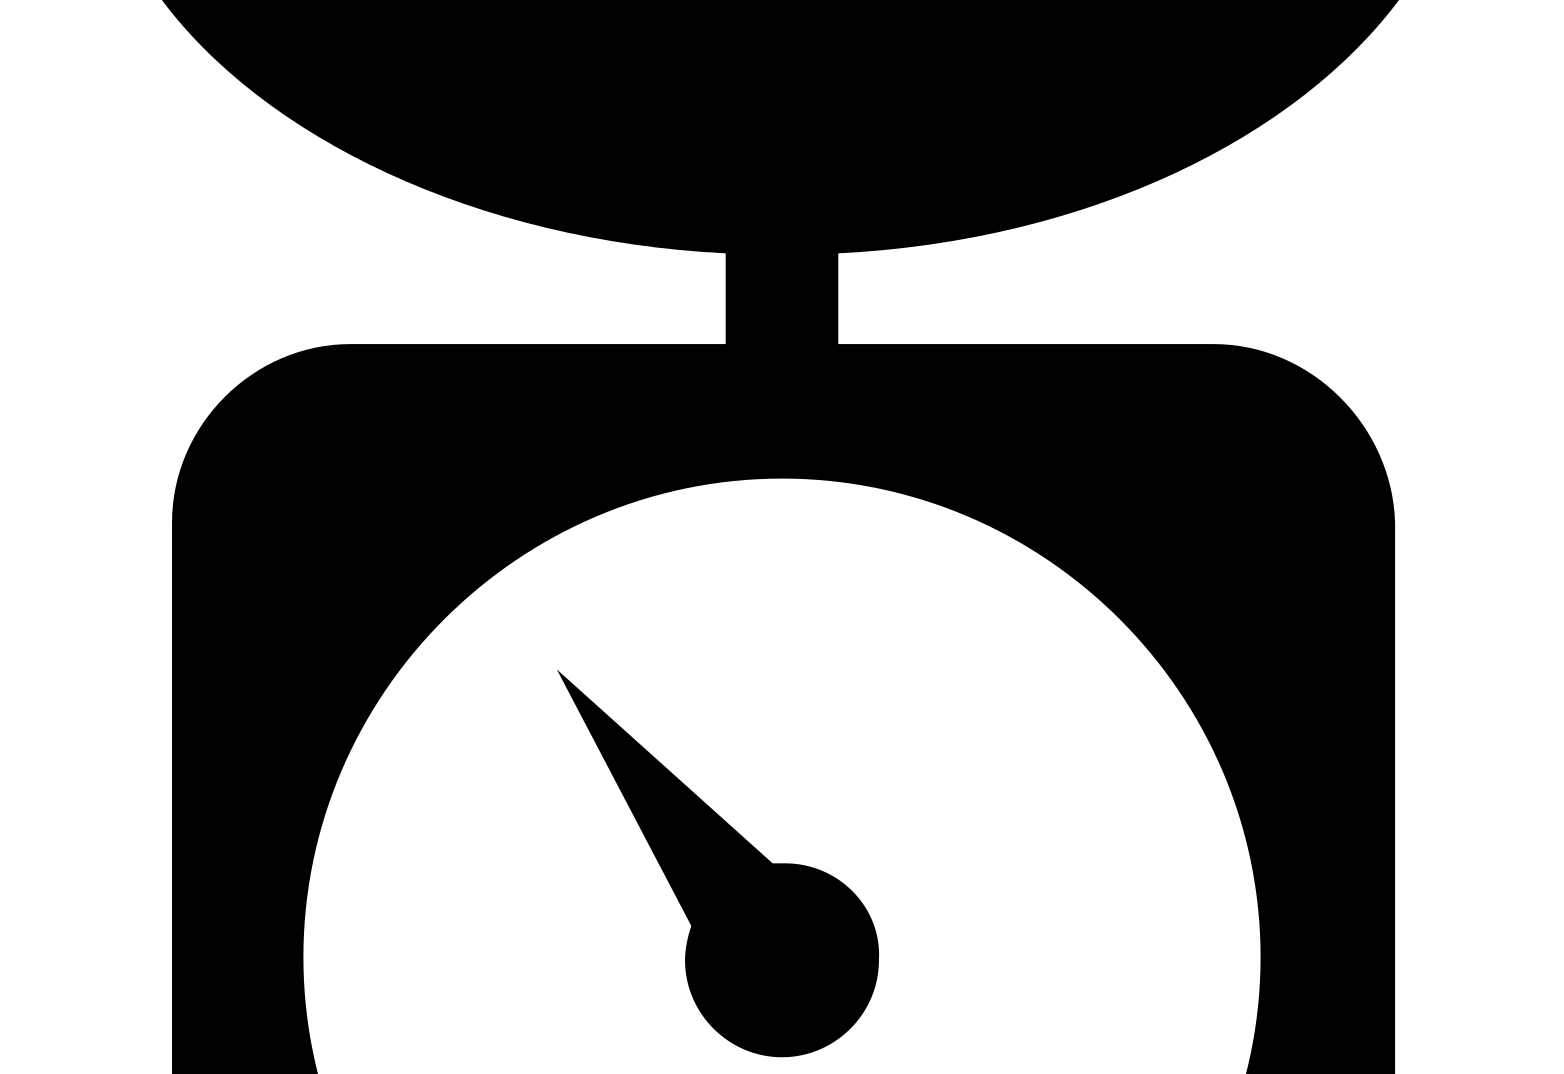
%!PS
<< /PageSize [1564 1074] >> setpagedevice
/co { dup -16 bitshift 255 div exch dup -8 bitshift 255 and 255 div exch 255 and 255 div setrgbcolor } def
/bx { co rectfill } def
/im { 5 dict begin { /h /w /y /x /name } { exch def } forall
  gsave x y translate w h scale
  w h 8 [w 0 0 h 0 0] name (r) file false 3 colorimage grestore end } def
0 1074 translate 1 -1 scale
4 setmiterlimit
0 0 1564 1074 16#FFFFFF bx
(media/1.raw) 162 0 1237 1074 im
showpage
